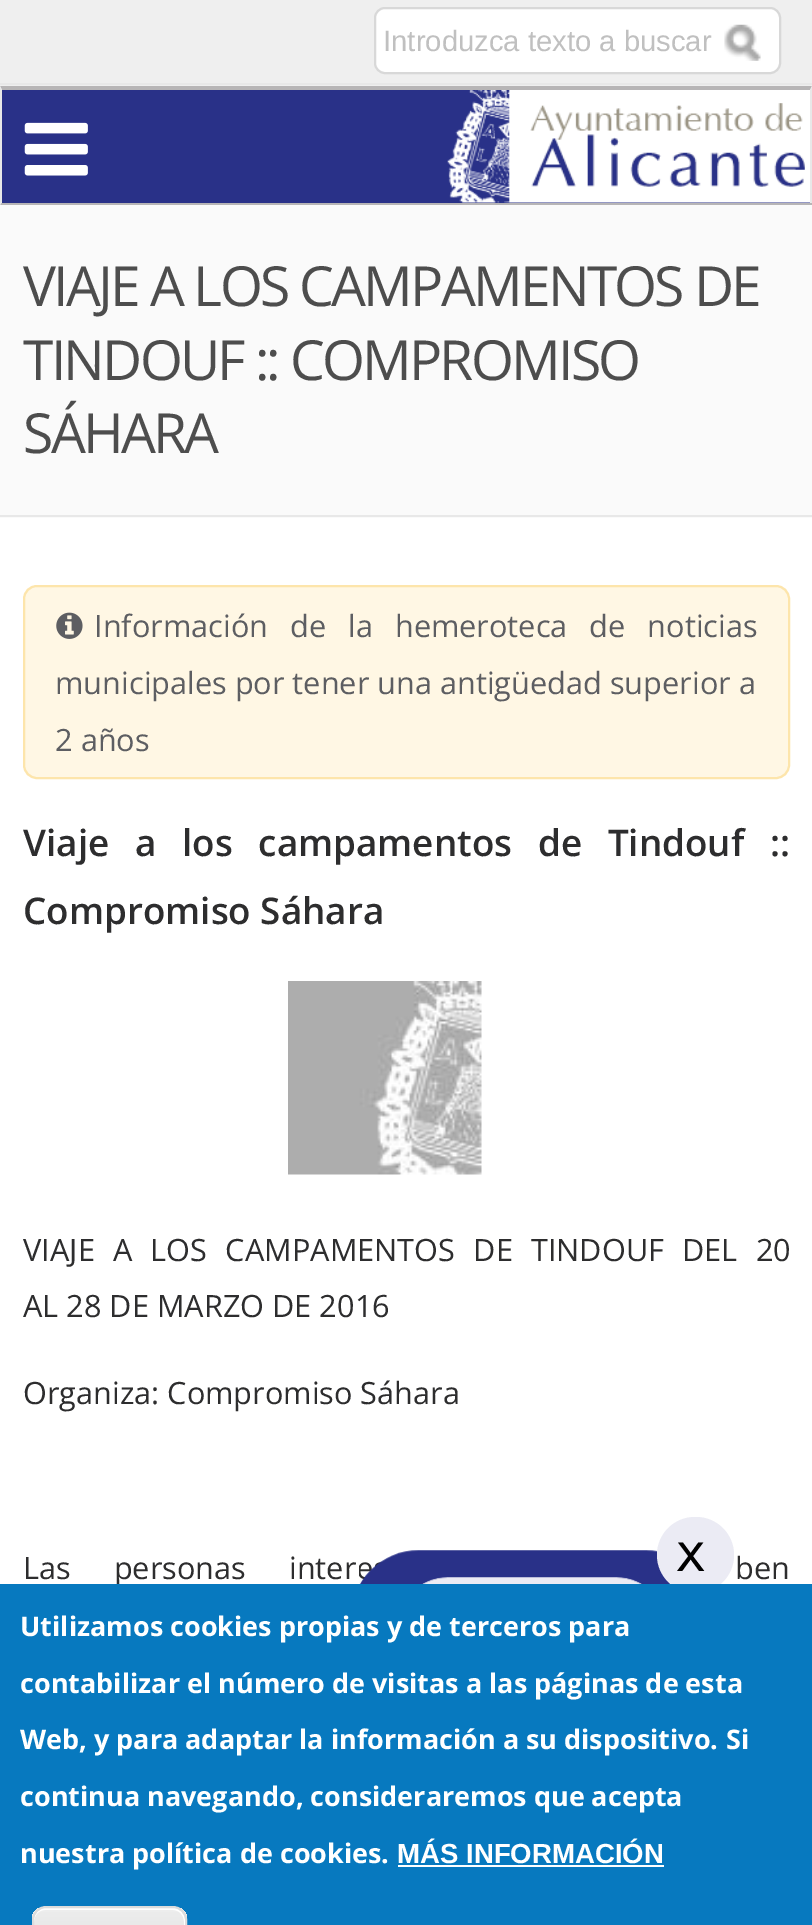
%!PS
<< /PageSize [812 1925] >> setpagedevice
/mt/moveto load def
/li/lineto load def
/ct/curveto load def
/cp/closepath load def
/fl/fill load def
/st/stroke load def
/gs/gsave load def
/gr/grestore load def
/lw/setlinewidth load def
/co { dup -16 bitshift 255 div exch dup -8 bitshift 255 and 255 div exch 255 and 255 div setrgbcolor } def
/fn { [ exch dup neg 0 0 3 -1 roll 0 0 ] selectfont } def
/tx { co fn moveto show } def
/bx { co rectfill } def
/rr { 5 dict begin { /r /h /w /y /x } { exch def } forall
  x r add y moveto x w add y 2 copy h add r arct x w add y h add x 1 index r arct
  x y h add x y r arct x y 2 copy exch w add exch r arct closepath end } def
/im { 5 dict begin { /h /w /y /x /name } { exch def } forall
  gsave x y translate w h scale
  w h 8 [w 0 0 h 0 0] name (r) file false 3 colorimage grestore end } def
0 1925 translate 1 -1 scale
4 setmiterlimit
0 0 812 1925 16#FFFFFF bx
0 0 812 86 16#EFEFEF bx
0 83 812 2 16#E8E8E8 bx
16#FFFFFF co
375 8 405 65 10 rr gs fl gr
16#D8D8D8 co
2 lw
st
(media/1.raw) 724 24 37 37 im
2 90 808 113 16#293188 bx
16#B7B5B6 co
0 86 mt 812 86 li 810 90 li 2 90 li cp fl
16#E8E8E8 co
812 86 mt 812 205 li 810 202 li 810 90 li cp fl
0 203 812 2 16#B7B5B6 bx
16#E8E8E8 co
0 205 mt 0 86 li 2 90 li 2 202 li cp fl
(media/2.raw) 24 122 64 54 im
(media/3.raw) 447 90 363 113 im
0 205 812 313 16#FAFAFA bx
0 515 812 2 16#E8E8E8 bx
16#FFF7E4 co
24 586 765 192 13 rr gs fl gr
16#FDE5AB co
st
(media/4.raw) 56 612 27 27 im
(media/5.raw) 288 981 194 194 im
(media/6.raw) 359 1550 312 34 im
16#EBEBF4 co
657 1517 77 76 38 rr fl
(Introduzca texto a buscar) 383 51 /LiberationSans-Regular 29.25 16#C0C0C0 tx
/OpenSans-Regular 55.25 fn
16#4D4D4D co
23 306 mt -2.75 0 (VIAJE A LOS CAMPAMENTOS DE) ashow
23 380 mt -2.75 0 (TINDOUF :: COMPROMISO) ashow
23 453 mt -2.75 0 (SÁHARA) ashow
/OpenSans-Regular 30.7 fn
16#5D5E62 co
94 637 mt 14 0 32 (Información de la hemeroteca de noticias) widthshow
(municipales por tener una antigüedad superior a) 55 694 /OpenSans-Regular 30.7 16#5D5E62 tx
(2 años) 55 751 /OpenSans-Regular 30.7 16#5D5E62 tx
/OpenSans-SemiBold 36.8 fn
16#2D2D2E co
23 856 mt 16.25 0 32 (Viaje a los campamentos de Tindouf ::) widthshow
(Compromiso Sáhara) 23 924 /OpenSans-SemiBold 36.8 16#2D2D2E tx
/OpenSans-Regular 30.7 fn
23 1261 mt 10.25 0 32 (VIAJE A LOS CAMPAMENTOS DE TINDOUF DEL 20) widthshow
(AL 28 DE MARZO DE 2016) 23 1317 /OpenSans-Regular 30.7 16#2D2D2E tx
(Organiza: Compromiso Sáhara) 23 1404 /OpenSans-Regular 30.7 16#2D2D2E tx
23 1579 mt 35 0 32 (Las personas inter) widthshow
735 1579 mt 35 0 32 (ben) widthshow
/DejaVuSansMono-Regular 52 fn
16#000000 co
675 1571 mt 8 0 (x) ashow
0 1584 812 341 16#0779BF bx
(Utilizamos cookies propias y de terceros para) 20 1636 /OpenSans-Bold 27 16#FFFFFF tx
(contabilizar el número de visitas a las páginas de esta) 20 1693 /OpenSans-Bold 27 16#FFFFFF tx
(Web, y para adaptar la información a su dispositivo.) 20 1749 /OpenSans-Bold 27 16#FFFFFF tx
(Si) 726 1749 /OpenSans-Bold 27 16#FFFFFF tx
(continua navegando, consideraremos que acepta) 20 1806 /OpenSans-Bold 27 16#FFFFFF tx
(nuestra política de cookies.) 20 1863 /OpenSans-Bold 27 16#FFFFFF tx
(MÁS INFORMACIÓN) 397 1863 /LiberationSans-Bold 27.6 16#FFFFFF tx
398 1865 266 2 16#FFFFFF bx
gs
32 1906 155 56 14 rr clip newpath
gs 32 1908 mt 187 1908 li 187 1925 li 32 1925 li cp clip newpath
<< /ShadingType 2 /ColorSpace /DeviceRGB /Coords [109 1908 109 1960] /Extend [true true] /Function << /FunctionType 3 /Domain [0 1] /Functions [<< /FunctionType 2 /Domain [0 1] /C0 [.929 .929 .929] /C1 [.929 .929 .929] /N 1 >> << /FunctionType 2 /Domain [0 1] /C0 [.929 .929 .929] /C1 [.875 .875 .875] /N 1 >>] /Bounds [.05] /Encode [0 1 0 1] >> >> shfill gr
gr
45 1910 mt 173 1910 li 179 1910 184 1915 184 1922 ct 184 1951 li 183 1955 li 184 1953 185 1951 185 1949 ct 185 1919 li 185 1913 180 1908 174 1908 ct 45 1908 li 39 1908 34 1913 34 1919 ct 34 1922 li 34 1915 39 1910 45 1910 ct cp fl
16#DCDCDC co
33 1907 153 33 13 rr st
showpage
